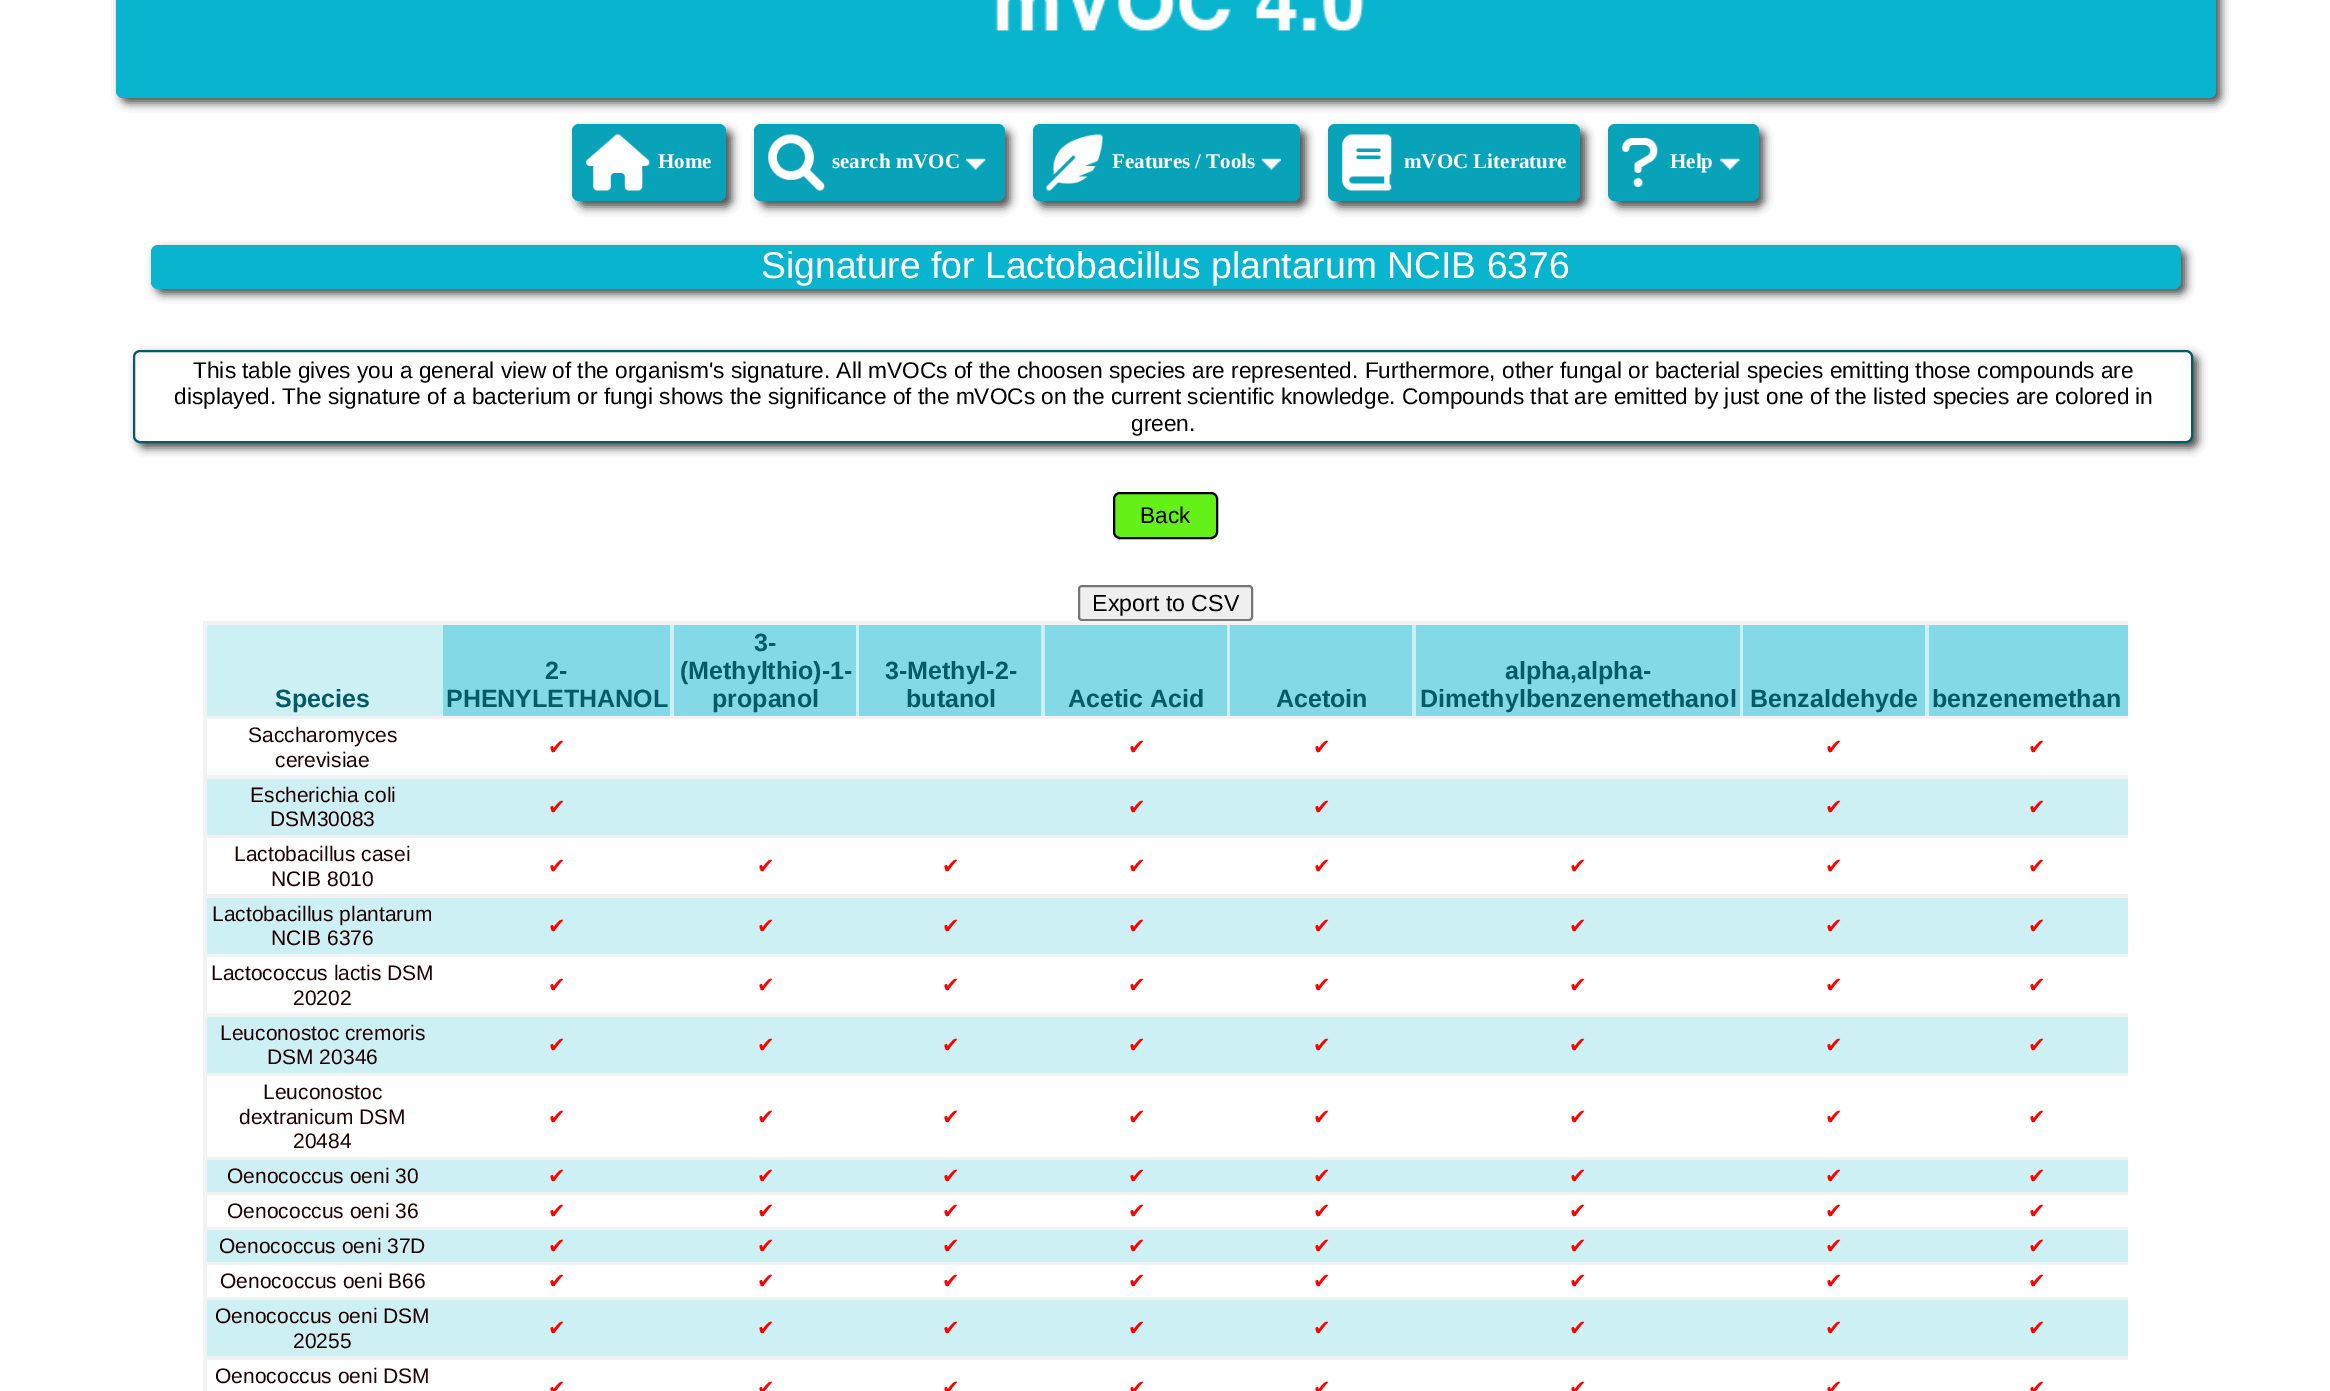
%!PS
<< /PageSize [2330 1391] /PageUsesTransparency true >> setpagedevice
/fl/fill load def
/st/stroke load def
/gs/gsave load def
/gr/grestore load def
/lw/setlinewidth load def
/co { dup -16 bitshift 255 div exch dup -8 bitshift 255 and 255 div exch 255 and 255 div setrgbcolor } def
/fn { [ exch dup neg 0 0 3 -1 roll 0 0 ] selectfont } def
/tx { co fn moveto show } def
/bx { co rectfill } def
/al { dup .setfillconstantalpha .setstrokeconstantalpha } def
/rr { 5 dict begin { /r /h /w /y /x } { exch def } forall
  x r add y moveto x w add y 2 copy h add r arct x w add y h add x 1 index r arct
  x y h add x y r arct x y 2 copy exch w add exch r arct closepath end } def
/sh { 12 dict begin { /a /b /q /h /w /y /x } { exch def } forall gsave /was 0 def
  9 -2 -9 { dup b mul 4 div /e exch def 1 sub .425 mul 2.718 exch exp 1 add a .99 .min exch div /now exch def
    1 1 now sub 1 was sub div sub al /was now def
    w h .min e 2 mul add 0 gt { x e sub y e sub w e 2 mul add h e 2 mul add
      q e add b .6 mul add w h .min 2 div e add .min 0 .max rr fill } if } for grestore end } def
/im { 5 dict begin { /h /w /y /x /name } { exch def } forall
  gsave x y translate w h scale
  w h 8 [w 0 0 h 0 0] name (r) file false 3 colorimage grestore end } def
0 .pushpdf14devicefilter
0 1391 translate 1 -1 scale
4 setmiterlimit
0 0 2330 1391 16#FFFFFF bx
16#4E4E4E co
121 -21 2100 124 7 4.5 1 sh
16#09B4CE co
116 -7 2100 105 7 rr fl
(media/1.raw) 995 0 369 31 im
16#4E4E4E co
578 130 154 77 7 4.5 1 sh
16#08A2B9 co
572 124 154 77 7 rr fl
(media/2.raw) 586 134 64 57 im
16#4E4E4E co
760 130 250 77 7 4.5 1 sh
16#08A2B9 co
754 124 251 77 7 rr fl
(media/3.raw) 768 134 57 57 im
(media/4.raw) 966 158 20 12 im
16#4E4E4E co
1038 130 268 77 7 4.5 1 sh
16#08A2B9 co
1033 124 267 77 7 rr fl
(media/5.raw) 1046 134 57 57 im
(media/6.raw) 1261 158 20 12 im
16#4E4E4E co
1334 130 252 77 7 4.5 1 sh
16#08A2B9 co
1328 124 252 77 7 rr fl
(media/7.raw) 1342 134 50 57 im
16#4E4E4E co
1614 130 150 77 7 4.5 1 sh
16#08A2B9 co
1608 124 151 77 7 rr fl
(media/8.raw) 1622 138 36 49 im
(media/9.raw) 1720 158 20 12 im
16#4E4E4E co
156 250 2030 44 7 4.5 1 sh
16#09B4CE co
151 245 2030 44 7 rr fl
16#4E4E4E co
138 355 2060 93 7 4.5 1 sh
16#FFFFFF co
134 351 2058 91 6 rr gs fl gr
16#045A67 co
2 lw
st
16#64F118 co
1114 493 103 45 6 rr gs fl gr
16#000000 co
st
16#EFEFEF co
1079 586 173 34 3 rr gs fl gr
16#767676 co
st
203 621 1925 770 16#F2F2F2 bx
207 625 1722 91 16#CDF0F5 bx
443 625 227 91 16#84D9E6 bx
674 625 182 91 16#84D9E6 bx
859 625 182 91 16#84D9E6 bx
1045 625 182 91 16#84D9E6 bx
1230 625 182 91 16#84D9E6 bx
1416 625 324 91 16#84D9E6 bx
1743 625 182 91 16#84D9E6 bx
1929 625 199 91 16#84D9E6 bx
207 719 1921 56 16#FFFFFF bx
207 779 1921 56 16#CDF0F5 bx
207 838 1921 56 16#FFFFFF bx
207 898 1921 56 16#CDF0F5 bx
207 957 1921 56 16#FFFFFF bx
207 1017 1921 56 16#CDF0F5 bx
207 1076 1921 81 16#FFFFFF bx
207 1160 1921 32 16#CDF0F5 bx
207 1195 1921 32 16#FFFFFF bx
207 1230 1921 32 16#CDF0F5 bx
207 1265 1921 32 16#FFFFFF bx
207 1300 1921 56 16#CDF0F5 bx
207 1360 1921 31 16#FFFFFF bx
(Home) 658 168 /LiberationSerif-Bold 21 16#FFFFFF tx
(search mVOC) 832 168 /LiberationSerif-Bold 21 16#FFFFFF tx
(Features / Tools) 1112 168 /LiberationSerif-Bold 21 16#FFFFFF tx
(mVOC Literature) 1404 168 /LiberationSerif-Bold 21 16#FFFFFF tx
(Help) 1670 168 /LiberationSerif-Bold 21 16#FFFFFF tx
(Signature for Lactobacillus plantarum NCIB 6376) 761 278 /LiberationSans-Regular 37.3 16#FFFFFF tx
(This table gives you a general view of the organism's signature. All mVOCs of the choosen species are represented. Furthermore, other fungal or bacterial species emitting those compounds are) 193 378 /LiberationSans-Regular 22.68 16#000000 tx
(displayed. The signature of a bacterium or fungi shows the significance of the mVOCs on the current scientific knowledge. Compounds that are emitted by just one of the listed species are colored in) 174 404 /LiberationSans-Regular 22.68 16#000000 tx
(green.) 1131 431 /LiberationSans-Regular 22.68 16#000000 tx
(Back) 1140 523 /LiberationSans-Regular 22.68 16#000000 tx
(Export to CSV) 1092 611 /LiberationSans-Regular 23.25 16#000000 tx
(Species) 275 707 /LiberationSans-Bold 25 16#045A67 tx
(2-) 545 679 /LiberationSans-Bold 25 16#045A67 tx
(PHENYLETHANOL) 446 707 /LiberationSans-Bold 25 16#045A67 tx
(3-) 754 651 /LiberationSans-Bold 25 16#045A67 tx
(\(Methylthio\)-1-) 680 679 /LiberationSans-Bold 25 16#045A67 tx
(propanol) 712 707 /LiberationSans-Bold 25 16#045A67 tx
(3-Methyl-2-) 885 679 /LiberationSans-Bold 25 16#045A67 tx
(butanol) 906 707 /LiberationSans-Bold 25 16#045A67 tx
(Acetic Acid) 1068 707 /LiberationSans-Bold 25 16#045A67 tx
(Acetoin) 1276 707 /LiberationSans-Bold 25 16#045A67 tx
(alpha,alpha-) 1505 679 /LiberationSans-Bold 25 16#045A67 tx
(Dimethylbenzenemethanol) 1420 707 /LiberationSans-Bold 25 16#045A67 tx
(Benzaldehyde) 1750 707 /LiberationSans-Bold 25 16#045A67 tx
(benzenemethan) 1932 707 /LiberationSans-Bold 25 16#045A67 tx
(Saccharomyces) 248 742 /LiberationSans-Regular 21 16#200000 tx
(cerevisiae) 275 767 /LiberationSans-Regular 21 16#200000 tx
(✔) 548 754 /DejaVuSans-Regular 21 16#FF0000 tx
(✔) 1128 754 /DejaVuSans-Regular 21 16#FF0000 tx
(✔) 1313 754 /DejaVuSans-Regular 21 16#FF0000 tx
(✔) 1825 754 /DejaVuSans-Regular 21 16#FF0000 tx
(✔) 2028 754 /DejaVuSans-Regular 21 16#FF0000 tx
(Escherichia coli) 250 802 /LiberationSans-Regular 21 16#200000 tx
(DSM30083) 270 826 /LiberationSans-Regular 21 16#200000 tx
(✔) 548 814 /DejaVuSans-Regular 21 16#FF0000 tx
(✔) 1128 814 /DejaVuSans-Regular 21 16#FF0000 tx
(✔) 1313 814 /DejaVuSans-Regular 21 16#FF0000 tx
(✔) 1825 814 /DejaVuSans-Regular 21 16#FF0000 tx
(✔) 2028 814 /DejaVuSans-Regular 21 16#FF0000 tx
(Lactobacillus casei) 234 861 /LiberationSans-Regular 21 16#200000 tx
(NCIB 8010) 271 886 /LiberationSans-Regular 21 16#200000 tx
(✔) 548 873 /DejaVuSans-Regular 21 16#FF0000 tx
(✔) 757 873 /DejaVuSans-Regular 21 16#FF0000 tx
(✔) 942 873 /DejaVuSans-Regular 21 16#FF0000 tx
(✔) 1128 873 /DejaVuSans-Regular 21 16#FF0000 tx
(✔) 1313 873 /DejaVuSans-Regular 21 16#FF0000 tx
(✔) 1569 873 /DejaVuSans-Regular 21 16#FF0000 tx
(✔) 1825 873 /DejaVuSans-Regular 21 16#FF0000 tx
(✔) 2028 873 /DejaVuSans-Regular 21 16#FF0000 tx
(Lactobacillus plantarum) 212 921 /LiberationSans-Regular 21 16#200000 tx
(NCIB 6376) 271 945 /LiberationSans-Regular 21 16#200000 tx
(✔) 548 933 /DejaVuSans-Regular 21 16#FF0000 tx
(✔) 757 933 /DejaVuSans-Regular 21 16#FF0000 tx
(✔) 942 933 /DejaVuSans-Regular 21 16#FF0000 tx
(✔) 1128 933 /DejaVuSans-Regular 21 16#FF0000 tx
(✔) 1313 933 /DejaVuSans-Regular 21 16#FF0000 tx
(✔) 1569 933 /DejaVuSans-Regular 21 16#FF0000 tx
(✔) 1825 933 /DejaVuSans-Regular 21 16#FF0000 tx
(✔) 2028 933 /DejaVuSans-Regular 21 16#FF0000 tx
(Lactococcus lactis DSM) 211 980 /LiberationSans-Regular 21 16#200000 tx
(20202) 293 1005 /LiberationSans-Regular 21 16#200000 tx
(✔) 548 992 /DejaVuSans-Regular 21 16#FF0000 tx
(✔) 757 992 /DejaVuSans-Regular 21 16#FF0000 tx
(✔) 942 992 /DejaVuSans-Regular 21 16#FF0000 tx
(✔) 1128 992 /DejaVuSans-Regular 21 16#FF0000 tx
(✔) 1313 992 /DejaVuSans-Regular 21 16#FF0000 tx
(✔) 1569 992 /DejaVuSans-Regular 21 16#FF0000 tx
(✔) 1825 992 /DejaVuSans-Regular 21 16#FF0000 tx
(✔) 2028 992 /DejaVuSans-Regular 21 16#FF0000 tx
(Leuconostoc cremoris) 220 1040 /LiberationSans-Regular 21 16#200000 tx
(DSM 20346) 267 1064 /LiberationSans-Regular 21 16#200000 tx
(✔) 548 1052 /DejaVuSans-Regular 21 16#FF0000 tx
(✔) 757 1052 /DejaVuSans-Regular 21 16#FF0000 tx
(✔) 942 1052 /DejaVuSans-Regular 21 16#FF0000 tx
(✔) 1128 1052 /DejaVuSans-Regular 21 16#FF0000 tx
(✔) 1313 1052 /DejaVuSans-Regular 21 16#FF0000 tx
(✔) 1569 1052 /DejaVuSans-Regular 21 16#FF0000 tx
(✔) 1825 1052 /DejaVuSans-Regular 21 16#FF0000 tx
(✔) 2028 1052 /DejaVuSans-Regular 21 16#FF0000 tx
(Leuconostoc) 263 1099 /LiberationSans-Regular 21 16#200000 tx
(dextranicum DSM) 239 1124 /LiberationSans-Regular 21 16#200000 tx
(20484) 293 1148 /LiberationSans-Regular 21 16#200000 tx
(✔) 548 1124 /DejaVuSans-Regular 21 16#FF0000 tx
(✔) 757 1124 /DejaVuSans-Regular 21 16#FF0000 tx
(✔) 942 1124 /DejaVuSans-Regular 21 16#FF0000 tx
(✔) 1128 1124 /DejaVuSans-Regular 21 16#FF0000 tx
(✔) 1313 1124 /DejaVuSans-Regular 21 16#FF0000 tx
(✔) 1569 1124 /DejaVuSans-Regular 21 16#FF0000 tx
(✔) 1825 1124 /DejaVuSans-Regular 21 16#FF0000 tx
(✔) 2028 1124 /DejaVuSans-Regular 21 16#FF0000 tx
(Oenococcus oeni 30) 227 1183 /LiberationSans-Regular 21 16#200000 tx
(✔) 548 1183 /DejaVuSans-Regular 21 16#FF0000 tx
(✔) 757 1183 /DejaVuSans-Regular 21 16#FF0000 tx
(✔) 942 1183 /DejaVuSans-Regular 21 16#FF0000 tx
(✔) 1128 1183 /DejaVuSans-Regular 21 16#FF0000 tx
(✔) 1313 1183 /DejaVuSans-Regular 21 16#FF0000 tx
(✔) 1569 1183 /DejaVuSans-Regular 21 16#FF0000 tx
(✔) 1825 1183 /DejaVuSans-Regular 21 16#FF0000 tx
(✔) 2028 1183 /DejaVuSans-Regular 21 16#FF0000 tx
(Oenococcus oeni 36) 227 1218 /LiberationSans-Regular 21 16#200000 tx
(✔) 548 1218 /DejaVuSans-Regular 21 16#FF0000 tx
(✔) 757 1218 /DejaVuSans-Regular 21 16#FF0000 tx
(✔) 942 1218 /DejaVuSans-Regular 21 16#FF0000 tx
(✔) 1128 1218 /DejaVuSans-Regular 21 16#FF0000 tx
(✔) 1313 1218 /DejaVuSans-Regular 21 16#FF0000 tx
(✔) 1569 1218 /DejaVuSans-Regular 21 16#FF0000 tx
(✔) 1825 1218 /DejaVuSans-Regular 21 16#FF0000 tx
(✔) 2028 1218 /DejaVuSans-Regular 21 16#FF0000 tx
(Oenococcus oeni 37D) 219 1253 /LiberationSans-Regular 21 16#200000 tx
(✔) 548 1253 /DejaVuSans-Regular 21 16#FF0000 tx
(✔) 757 1253 /DejaVuSans-Regular 21 16#FF0000 tx
(✔) 942 1253 /DejaVuSans-Regular 21 16#FF0000 tx
(✔) 1128 1253 /DejaVuSans-Regular 21 16#FF0000 tx
(✔) 1313 1253 /DejaVuSans-Regular 21 16#FF0000 tx
(✔) 1569 1253 /DejaVuSans-Regular 21 16#FF0000 tx
(✔) 1825 1253 /DejaVuSans-Regular 21 16#FF0000 tx
(✔) 2028 1253 /DejaVuSans-Regular 21 16#FF0000 tx
(Oenococcus oeni B66) 220 1288 /LiberationSans-Regular 21 16#200000 tx
(✔) 548 1288 /DejaVuSans-Regular 21 16#FF0000 tx
(✔) 757 1288 /DejaVuSans-Regular 21 16#FF0000 tx
(✔) 942 1288 /DejaVuSans-Regular 21 16#FF0000 tx
(✔) 1128 1288 /DejaVuSans-Regular 21 16#FF0000 tx
(✔) 1313 1288 /DejaVuSans-Regular 21 16#FF0000 tx
(✔) 1569 1288 /DejaVuSans-Regular 21 16#FF0000 tx
(✔) 1825 1288 /DejaVuSans-Regular 21 16#FF0000 tx
(✔) 2028 1288 /DejaVuSans-Regular 21 16#FF0000 tx
(Oenococcus oeni DSM) 215 1323 /LiberationSans-Regular 21 16#200000 tx
(20255) 293 1348 /LiberationSans-Regular 21 16#200000 tx
(✔) 548 1335 /DejaVuSans-Regular 21 16#FF0000 tx
(✔) 757 1335 /DejaVuSans-Regular 21 16#FF0000 tx
(✔) 942 1335 /DejaVuSans-Regular 21 16#FF0000 tx
(✔) 1128 1335 /DejaVuSans-Regular 21 16#FF0000 tx
(✔) 1313 1335 /DejaVuSans-Regular 21 16#FF0000 tx
(✔) 1569 1335 /DejaVuSans-Regular 21 16#FF0000 tx
(✔) 1825 1335 /DejaVuSans-Regular 21 16#FF0000 tx
(✔) 2028 1335 /DejaVuSans-Regular 21 16#FF0000 tx
(Oenococcus oeni DSM) 215 1383 /LiberationSans-Regular 21 16#200000 tx
(✔) 548 1395 /DejaVuSans-Regular 21 16#FF0000 tx
(✔) 757 1395 /DejaVuSans-Regular 21 16#FF0000 tx
(✔) 942 1395 /DejaVuSans-Regular 21 16#FF0000 tx
(✔) 1128 1395 /DejaVuSans-Regular 21 16#FF0000 tx
(✔) 1313 1395 /DejaVuSans-Regular 21 16#FF0000 tx
(✔) 1569 1395 /DejaVuSans-Regular 21 16#FF0000 tx
(✔) 1825 1395 /DejaVuSans-Regular 21 16#FF0000 tx
(✔) 2028 1395 /DejaVuSans-Regular 21 16#FF0000 tx
.poppdf14devicefilter showpage
